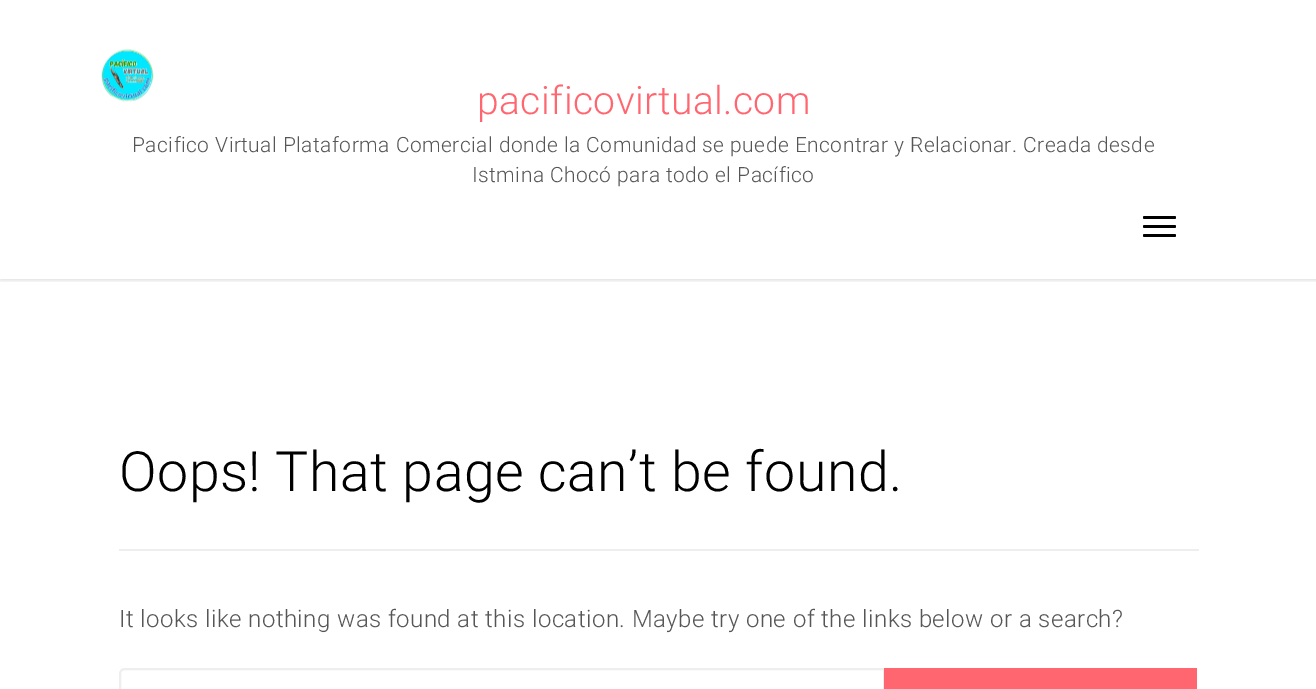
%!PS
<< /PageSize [1316 689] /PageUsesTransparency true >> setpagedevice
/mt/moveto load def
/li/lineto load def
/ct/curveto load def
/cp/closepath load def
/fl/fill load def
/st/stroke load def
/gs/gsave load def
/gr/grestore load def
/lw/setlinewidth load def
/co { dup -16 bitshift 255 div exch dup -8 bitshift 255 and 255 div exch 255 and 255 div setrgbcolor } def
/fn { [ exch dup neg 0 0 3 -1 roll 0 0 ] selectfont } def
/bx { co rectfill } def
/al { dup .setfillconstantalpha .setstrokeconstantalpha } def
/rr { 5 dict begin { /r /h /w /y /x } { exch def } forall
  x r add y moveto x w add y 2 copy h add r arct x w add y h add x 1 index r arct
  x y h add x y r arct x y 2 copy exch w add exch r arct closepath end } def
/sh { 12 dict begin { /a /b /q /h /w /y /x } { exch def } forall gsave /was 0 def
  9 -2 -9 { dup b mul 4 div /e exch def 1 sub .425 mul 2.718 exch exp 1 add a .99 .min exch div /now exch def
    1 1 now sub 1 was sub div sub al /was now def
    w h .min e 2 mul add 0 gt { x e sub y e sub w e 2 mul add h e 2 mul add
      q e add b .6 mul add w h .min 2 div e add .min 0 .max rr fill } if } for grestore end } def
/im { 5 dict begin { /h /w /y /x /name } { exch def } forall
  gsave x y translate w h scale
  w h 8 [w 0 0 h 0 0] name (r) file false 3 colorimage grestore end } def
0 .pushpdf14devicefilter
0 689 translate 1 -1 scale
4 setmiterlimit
0 0 1316 689 16#FFFFFF bx
gs
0 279 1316 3 rectclip
16#000000 co
0 2 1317 279 0 1.5 .1 sh
gr
(media/1.raw) 101 48 53 54 im
16#000000 co
1143 216 33 3 1.5 rr fl
1143 225 33 3 1.5 rr fl
1143 234 33 3 1.5 rr fl
119 549 1080 2 16#EEEEEE bx
2 lw
125 669 mt 884 669 li 884 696 li 125 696 li 122 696 120 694 120 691 ct 120 674 li 120 671 122 669 125 669 ct cp st
884 668 313 21 16#FF6670 bx
/Roboto-Light 39 fn
477 114 mt .45 0 (pacificovirtual.com) ashow
/Roboto-Light 21 fn
16#565656 co
132 152 mt .45 0 (Pacifico Virtual Plataforma Comercial donde la Comunidad se puede Encontrar y Relacionar. Creada desde) ashow
472 182 mt .45 0 (Istmina Chocó para todo el Pacífico) ashow
/Roboto-Light 55.5 fn
16#000000 co
119 491 mt .45 0 (Oops! That page can’t be found.) ashow
/Roboto-Light 24 fn
16#565656 co
119 627 mt .45 0 (It looks like nothing was found at this location. Maybe try one of the links below or a search?) ashow
.poppdf14devicefilter showpage
